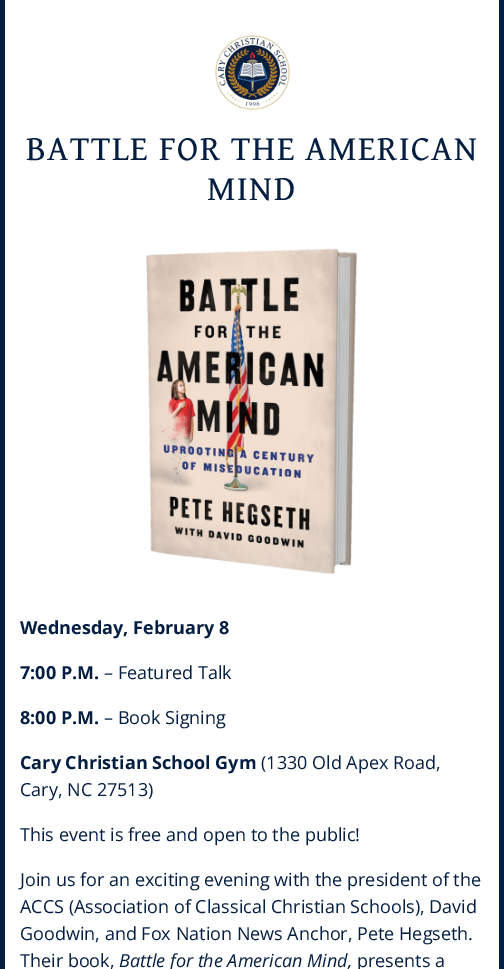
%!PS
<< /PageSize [504 969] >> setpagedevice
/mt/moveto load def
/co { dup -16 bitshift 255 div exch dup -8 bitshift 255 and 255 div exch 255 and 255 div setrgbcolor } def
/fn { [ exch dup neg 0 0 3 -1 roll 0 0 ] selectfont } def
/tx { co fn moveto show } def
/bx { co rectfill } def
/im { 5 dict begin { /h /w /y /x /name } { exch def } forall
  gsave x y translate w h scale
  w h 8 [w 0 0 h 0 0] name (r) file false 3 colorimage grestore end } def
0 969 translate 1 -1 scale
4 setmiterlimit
0 0 504 969 16#041E42 bx
5 0 494 969 16#FFFFFF bx
(media/1.raw) 215 35 75 75 im
(media/2.raw) 143 246 218 333 im
/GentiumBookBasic-Regular 35 fn
16#041E42 co
26 160 mt 1.4 0 (BATTLE FOR THE AMERICAN) ashow
207 200 mt 1.4 0 (MIND) ashow
(Wednesday, February 8) 20 634 /OpenSans-Bold 18 16#041E42 tx
(7:00 P.M.) 20 679 /OpenSans-Bold 18 16#041E42 tx
(– Featured Talk) 104 679 /OpenSans-Regular 18 16#041E42 tx
(8:00 P.M.) 20 724 /OpenSans-Bold 18 16#041E42 tx
(– Book Signing) 104 724 /OpenSans-Regular 18 16#041E42 tx
(Cary Christian School Gym) 20 769 /OpenSans-Bold 18 16#041E42 tx
(\(1330 Old Apex Road,) 261 769 /OpenSans-Regular 18 16#041E42 tx
(Cary, NC 27513\)) 20 796 /OpenSans-Regular 18 16#041E42 tx
(This event is free and open to the public!) 20 841 /OpenSans-Regular 18 16#041E42 tx
(Join us for an exciting evening with the president of the) 20 886 /OpenSans-Regular 18 16#041E42 tx
(ACCS \(Association of Classical Christian Schools\), David) 20 913 /OpenSans-Regular 18 16#041E42 tx
(Goodwin, and Fox Nation News Anchor, Pete Hegseth.) 20 940 /OpenSans-Regular 18 16#041E42 tx
(Their book,) 20 967 /OpenSans-Regular 18 16#041E42 tx
(Battle for the American Mind,) 119 967 /OpenSans-Italic 18 16#041E42 tx
(presents a) 357 967 /OpenSans-Regular 18 16#041E42 tx
showpage
